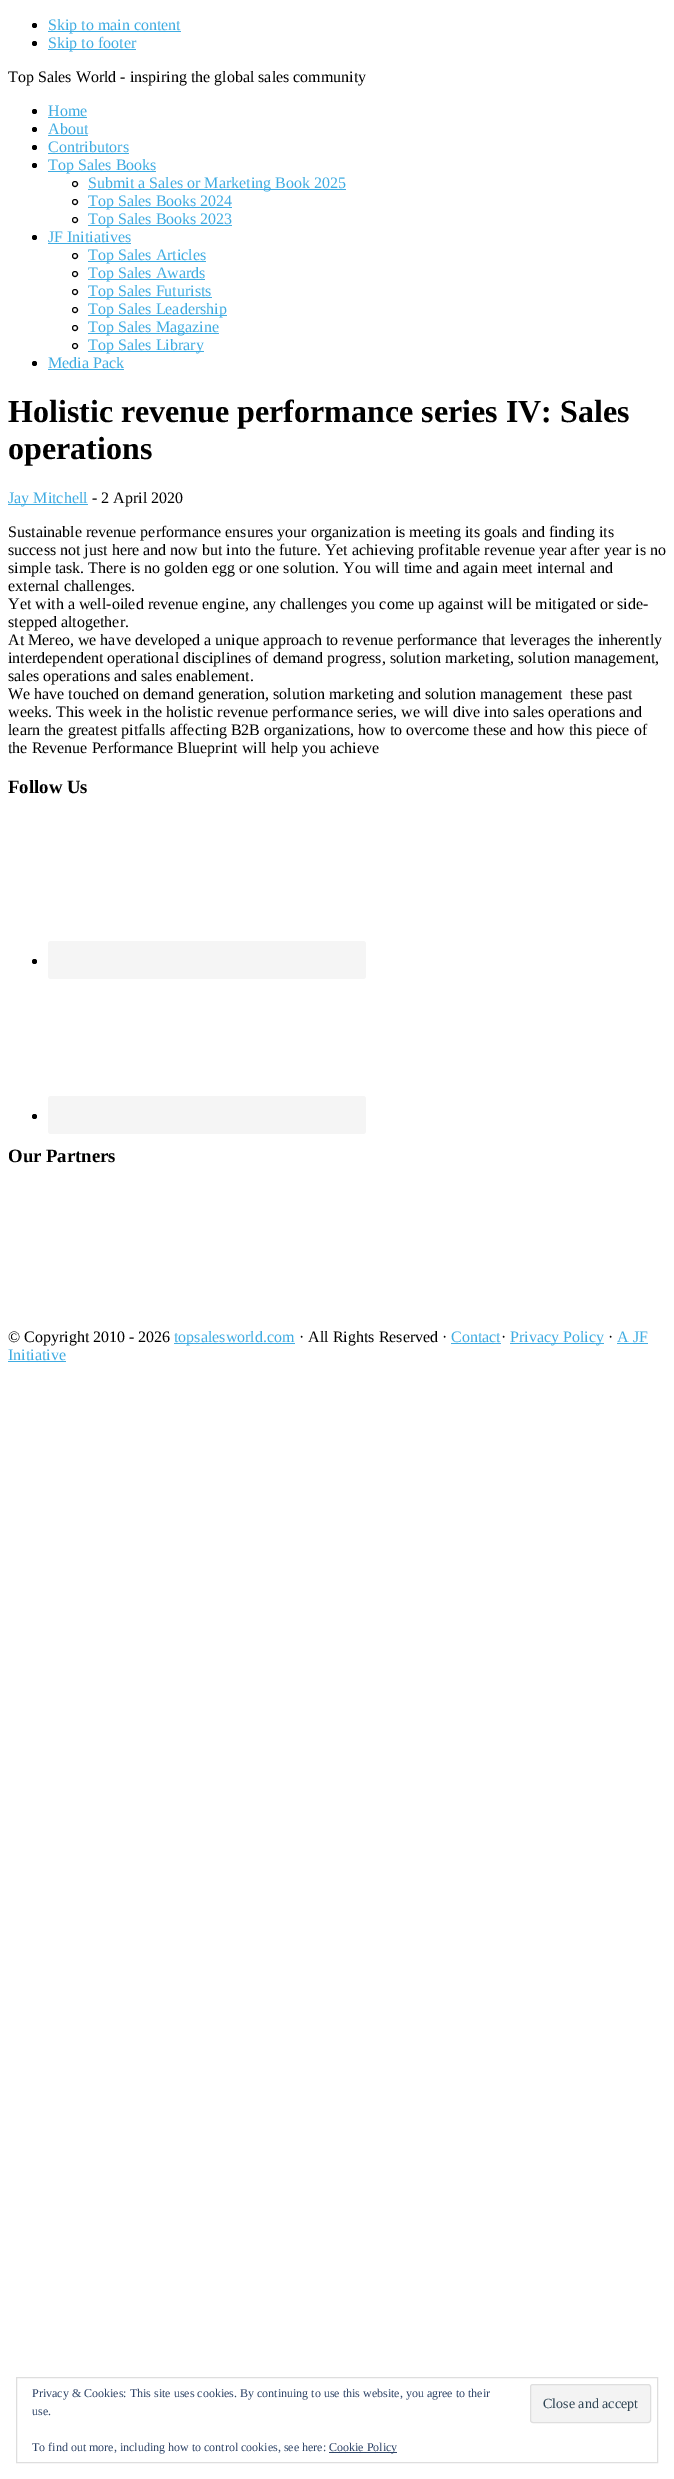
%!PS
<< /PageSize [674 2479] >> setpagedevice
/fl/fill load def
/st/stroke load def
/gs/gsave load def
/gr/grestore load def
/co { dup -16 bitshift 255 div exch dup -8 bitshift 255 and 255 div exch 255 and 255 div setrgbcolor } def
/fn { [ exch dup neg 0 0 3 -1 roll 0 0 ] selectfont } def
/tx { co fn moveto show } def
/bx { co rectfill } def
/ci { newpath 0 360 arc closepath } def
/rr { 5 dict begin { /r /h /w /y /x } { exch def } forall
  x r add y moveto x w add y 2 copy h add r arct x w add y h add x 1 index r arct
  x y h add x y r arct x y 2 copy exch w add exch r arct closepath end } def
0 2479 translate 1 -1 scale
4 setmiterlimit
0 0 674 2479 16#FFFFFF bx
16#000000 co
34.5 25.5 2.5 ci fl
48 31 133 1 16#3FACE2 bx
16#000000 co
34.5 43.5 2.5 ci fl
48 49 88 1 16#3FACE2 bx
16#000000 co
34.5 111.5 2.5 ci fl
48 117 39 1 16#3FACE2 bx
16#000000 co
34.5 129.5 2.5 ci fl
48 135 40 1 16#3FACE2 bx
16#000000 co
34.5 147.5 2.5 ci fl
48 153 81 1 16#3FACE2 bx
16#000000 co
34.5 165.5 2.5 ci fl
48 171 108 1 16#3FACE2 bx
16#000000 co
75 184 2.5 ci st
88 189 258 1 16#3FACE2 bx
16#000000 co
75 202 2.5 ci st
88 207 144 1 16#3FACE2 bx
16#000000 co
75 220 2.5 ci st
88 225 144 1 16#3FACE2 bx
16#000000 co
34.5 237.5 2.5 ci fl
48 243 83 1 16#3FACE2 bx
16#000000 co
75 256 2.5 ci st
88 261 118 1 16#3FACE2 bx
16#000000 co
75 274 2.5 ci st
88 279 117 1 16#3FACE2 bx
16#000000 co
75 292 2.5 ci st
88 297 124 1 16#3FACE2 bx
16#000000 co
75 310 2.5 ci st
88 315 139 1 16#3FACE2 bx
16#000000 co
75 328 2.5 ci st
88 333 131 1 16#3FACE2 bx
16#000000 co
75 346 2.5 ci st
88 351 116 1 16#3FACE2 bx
16#000000 co
34.5 363.5 2.5 ci fl
48 369 76 1 16#3FACE2 bx
8 504 80 1 16#3FACE2 bx
16#000000 co
34.5 961.5 2.5 ci fl
16#F5F5F5 co
48 941 318 38 3 rr fl
16#000000 co
34.5 1116.5 2.5 ci fl
16#F5F5F5 co
48 1096 318 38 3 rr fl
174 1343 121 1 16#3FACE2 bx
451 1343 50 1 16#3FACE2 bx
510 1343 94 1 16#3FACE2 bx
617 1343 31 1 16#3FACE2 bx
8 1361 58 1 16#3FACE2 bx
16#DEDEDE co
16.5 2377.5 641 85 rectstroke
16#F3F3F3 co
530.5 2384.5 120 38 2.5 rr gs fl gr
16#DEDEDE co
st
329 2452 68 1 16#2E4467 bx
(Skip to main content) 48 30 /LiberationSerif-Regular 16 16#3FACE2 tx
(Skip to footer) 48 48 /LiberationSerif-Regular 16 16#3FACE2 tx
(Top Sales World - inspiring the global sales community) 8 82 /LiberationSerif-Regular 16 16#000000 tx
(Home) 48 116 /LiberationSerif-Regular 16 16#3FACE2 tx
(About) 48 134 /LiberationSerif-Regular 16 16#3FACE2 tx
(Contributors) 48 152 /LiberationSerif-Regular 16 16#3FACE2 tx
(Top Sales Books) 48 170 /LiberationSerif-Regular 16 16#3FACE2 tx
(Submit a Sales or Marketing Book 2025) 88 188 /LiberationSerif-Regular 16 16#3FACE2 tx
(Top Sales Books 2024) 88 206 /LiberationSerif-Regular 16 16#3FACE2 tx
(Top Sales Books 2023) 88 224 /LiberationSerif-Regular 16 16#3FACE2 tx
(JF Initiatives) 48 242 /LiberationSerif-Regular 16 16#3FACE2 tx
(Top Sales Articles) 88 260 /LiberationSerif-Regular 16 16#3FACE2 tx
(Top Sales Awards) 88 278 /LiberationSerif-Regular 16 16#3FACE2 tx
(Top Sales Futurists) 88 296 /LiberationSerif-Regular 16 16#3FACE2 tx
(Top Sales Leadership) 88 314 /LiberationSerif-Regular 16 16#3FACE2 tx
(Top Sales Magazine) 88 332 /LiberationSerif-Regular 16 16#3FACE2 tx
(Top Sales Library) 88 350 /LiberationSerif-Regular 16 16#3FACE2 tx
(Media Pack) 48 368 /LiberationSerif-Regular 16 16#3FACE2 tx
(Holistic revenue performance series IV: Sales) 8 422 /LiberationSerif-Bold 32 16#000000 tx
(operations) 8 459 /LiberationSerif-Bold 32 16#000000 tx
(Jay Mitchell) 8 503 /LiberationSerif-Regular 16 16#3FACE2 tx
(- 2 April 2020) 92 503 /LiberationSerif-Regular 16 16#000000 tx
(Sustainable revenue performance ensures your organization is meeting its goals and finding its) 8 537 /LiberationSerif-Regular 16 16#000000 tx
(success not just here and now but into the future. Yet achieving profitable revenue year after year is no) 8 555 /LiberationSerif-Regular 16 16#000000 tx
(simple task. There is no golden egg or one solution. You will time and again meet internal and) 8 573 /LiberationSerif-Regular 16 16#000000 tx
(external challenges.) 8 591 /LiberationSerif-Regular 16 16#000000 tx
(Yet with a well-oiled revenue engine, any challenges you come up against will be mitigated or side-) 8 609 /LiberationSerif-Regular 16 16#000000 tx
(stepped altogether.) 8 627 /LiberationSerif-Regular 16 16#000000 tx
(At Mereo, we have developed a unique approach to revenue performance that leverages the inherently) 8 645 /LiberationSerif-Regular 16 16#000000 tx
(interdependent operational disciplines of demand progress, solution marketing, solution management,) 8 663 /LiberationSerif-Regular 16 16#000000 tx
(sales operations and sales enablement.) 8 681 /LiberationSerif-Regular 16 16#000000 tx
(We have touched on demand generation, solution marketing and solution management  these past) 8 699 /LiberationSerif-Regular 16 16#000000 tx
(weeks. This week in the holistic revenue performance series, we will dive into sales operations and) 8 717 /LiberationSerif-Regular 16 16#000000 tx
(learn the greatest pitfalls affecting B2B organizations, how to overcome these and how this piece of) 8 735 /LiberationSerif-Regular 16 16#000000 tx
(the Revenue Performance Blueprint will help you achieve) 8 753 /LiberationSerif-Regular 16 16#000000 tx
(Follow Us) 8 793 /LiberationSerif-Bold 18.75 16#000000 tx
(Our Partners) 8 1162 /LiberationSerif-Bold 18.75 16#000000 tx
(© Copyright 2010 - 2026) 8 1342 /LiberationSerif-Regular 16 16#000000 tx
(topsalesworld.com) 174 1342 /LiberationSerif-Regular 16 16#3FACE2 tx
(· All Rights Reserved ·) 299 1342 /LiberationSerif-Regular 16 16#000000 tx
(Contact) 451 1342 /LiberationSerif-Regular 16 16#3FACE2 tx
(·) 501 1342 /LiberationSerif-Regular 16 16#000000 tx
(Privacy Policy) 510 1342 /LiberationSerif-Regular 16 16#3FACE2 tx
(·) 608 1342 /LiberationSerif-Regular 16 16#000000 tx
(A JF) 617 1342 /LiberationSerif-Regular 16 16#3FACE2 tx
(Initiative) 8 1360 /LiberationSerif-Regular 16 16#3FACE2 tx
(Privacy & Cookies: This site uses cookies. By continuing to use this website, you agree to their) 32 2397 /LiberationSerif-Regular 12 16#2E4467 tx
(Close and accept) 543 2408 /LiberationSerif-Regular 14 16#2E4453 tx
(use.) 32 2415 /LiberationSerif-Regular 12 16#2E4467 tx
(To find out more, including how to control cookies, see here:) 32 2451 /LiberationSerif-Regular 12 16#2E4467 tx
(Cookie Policy) 329 2451 /LiberationSerif-Regular 12 16#2E4467 tx
showpage
